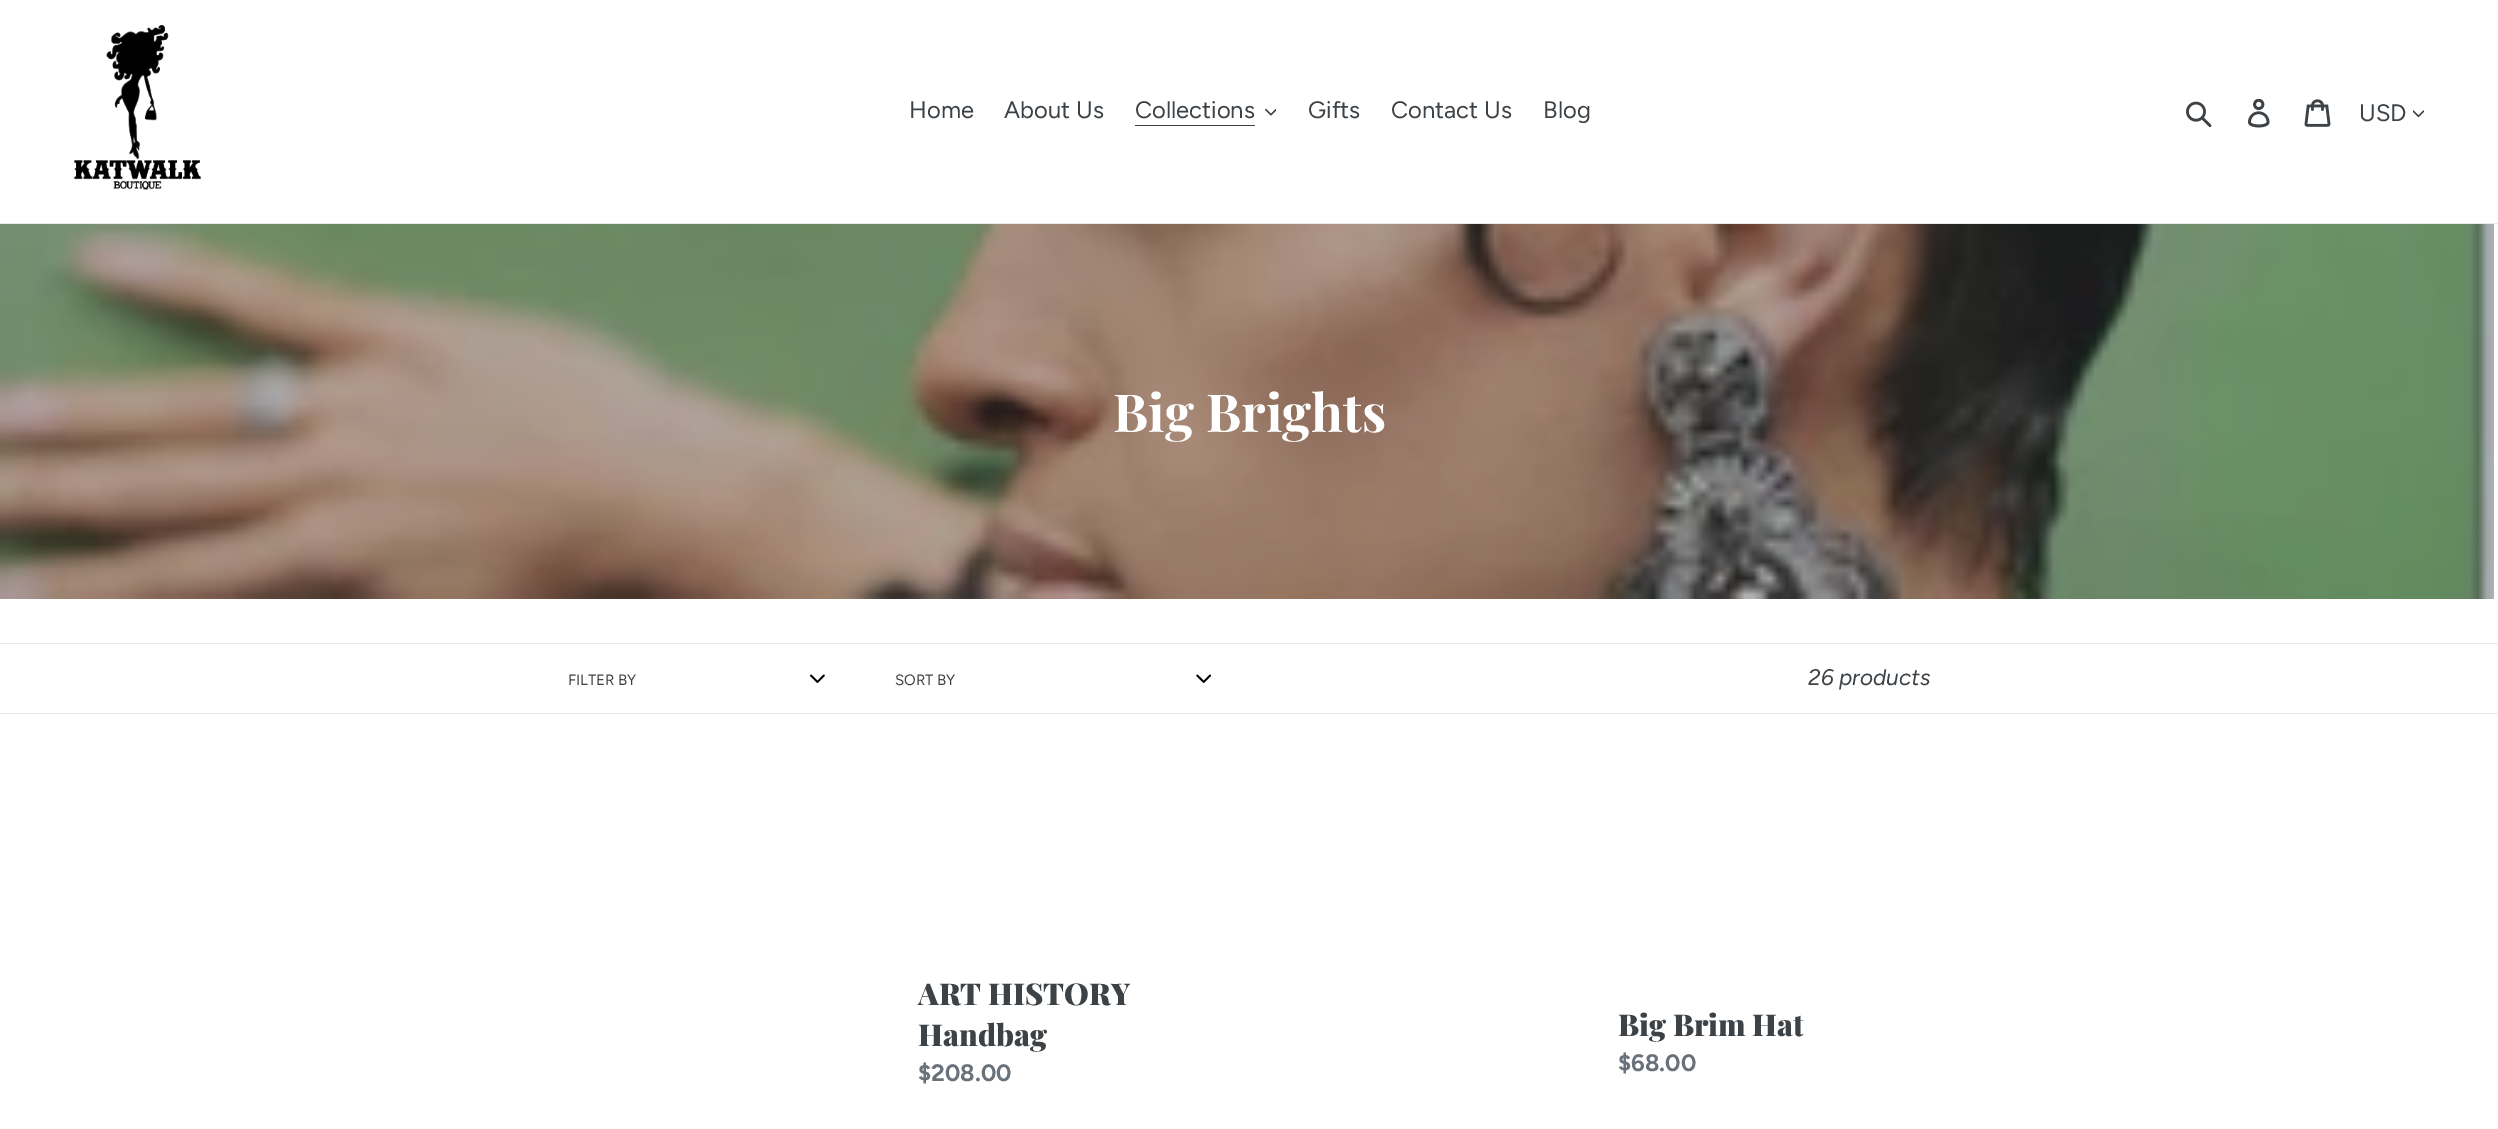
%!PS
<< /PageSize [2498 1129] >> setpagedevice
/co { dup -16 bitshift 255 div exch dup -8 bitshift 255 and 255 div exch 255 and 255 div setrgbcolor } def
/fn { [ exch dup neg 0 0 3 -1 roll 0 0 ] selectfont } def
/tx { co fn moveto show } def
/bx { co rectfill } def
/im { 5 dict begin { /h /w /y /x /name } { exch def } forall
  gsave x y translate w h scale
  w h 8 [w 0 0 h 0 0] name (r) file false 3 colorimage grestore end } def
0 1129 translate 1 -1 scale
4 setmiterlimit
0 0 2498 1129 16#FFFFFF bx
0 223 2498 1 16#E8E9EB bx
(media/1.raw) 74 25 128 165 im
1135 125 120 1 16#3D4246 bx
(media/2.raw) 1265 108 11 8 im
(media/3.raw) 2186 101 26 27 im
(media/4.raw) 2248 99 22 29 im
(media/5.raw) 2304 99 27 28 im
(media/6.raw) 2413 110 11 8 im
(media/7.raw) 0 224 2494 375 im
0 643 2498 1 16#E8E9EB bx
0 713 2498 1 16#E8E9EB bx
(media/8.raw) 810 674 15 9 im
(media/9.raw) 1196 674 15 9 im
(Home) 909 118 /Figtree-Regular 23.75 16#3D4246 tx
(About Us) 1004 118 /Figtree-Regular 23.75 16#3D4246 tx
(Collections) 1135 118 /Figtree-Regular 23.75 16#3D4246 tx
(Gifts) 1308 118 /Figtree-Regular 23.75 16#3D4246 tx
(Contact Us) 1391 118 /Figtree-Regular 23.75 16#3D4246 tx
(Blog) 1543 118 /Figtree-Regular 23.75 16#3D4246 tx
(USD) 2359 121 /Figtree-Regular 23.75 16#3D4246 tx
(Big Brights) 1113 432 /PlayfairDisplay-Bold 52.5 16#FFFFFF tx
(FILTER BY) 568 685 /Figtree-Regular 15 16#3D4246 tx
(SORT BY) 895 685 /Figtree-Regular 15 16#3D4246 tx
(26 products) 1808 685 /Figtree-Italic 22.5 16#3D4246 tx
(ART HISTORY) 918 1005 /PlayfairDisplay-Black 30 16#3D4246 tx
(Handbag) 918 1046 /PlayfairDisplay-Black 30 16#3D4246 tx
($208.00) 918 1081 /Figtree-Bold 23.75 16#69727B tx
(Big Brim Hat) 1618 1036 /PlayfairDisplay-Black 30 16#3D4246 tx
($68.00) 1618 1071 /Figtree-Bold 23.75 16#69727B tx
showpage
